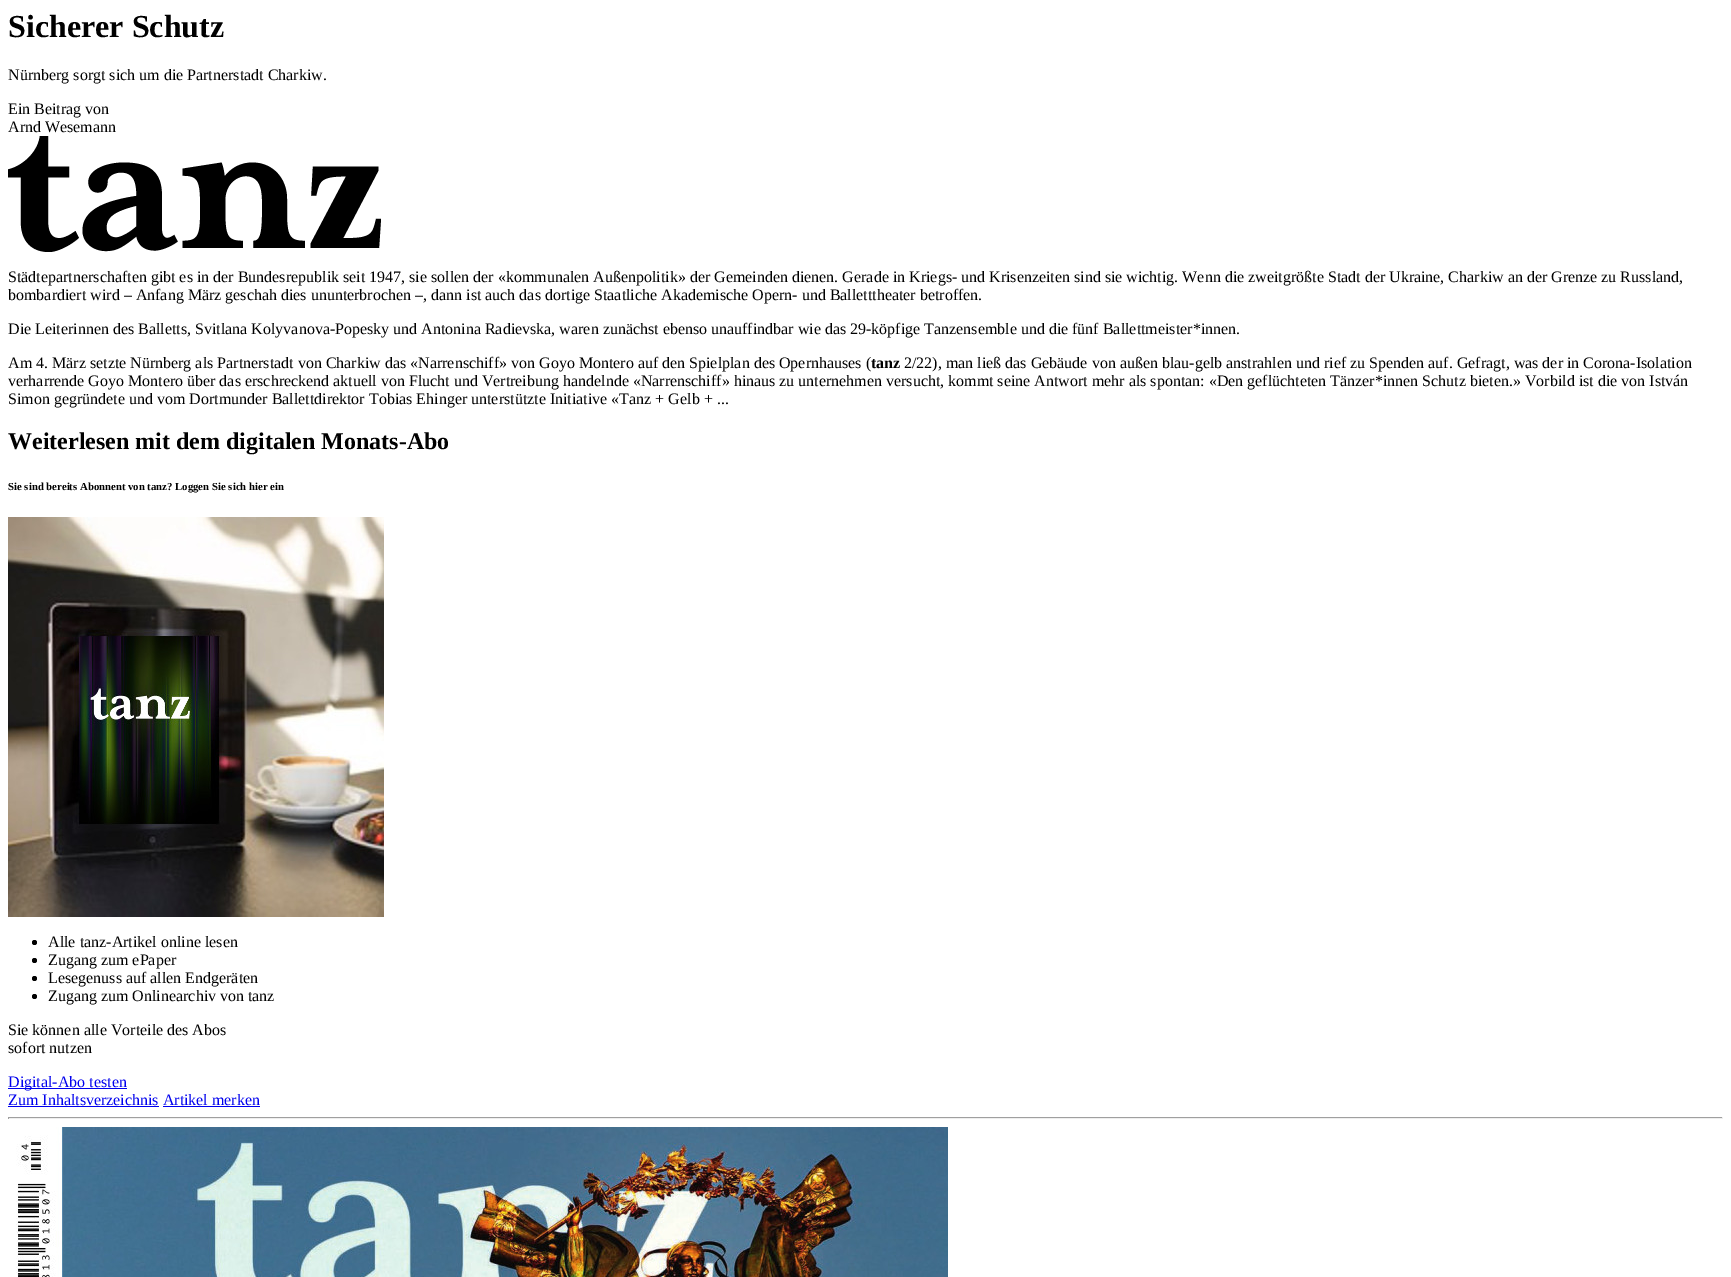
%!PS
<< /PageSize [1731 1277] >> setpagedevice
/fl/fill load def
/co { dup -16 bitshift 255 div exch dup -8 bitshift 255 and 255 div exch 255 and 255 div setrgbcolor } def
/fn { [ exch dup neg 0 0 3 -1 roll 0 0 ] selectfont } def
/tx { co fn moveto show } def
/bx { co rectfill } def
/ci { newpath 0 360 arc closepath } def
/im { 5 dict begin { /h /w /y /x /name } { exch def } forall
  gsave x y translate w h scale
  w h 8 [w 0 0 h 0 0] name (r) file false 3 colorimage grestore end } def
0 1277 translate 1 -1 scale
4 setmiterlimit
0 0 1731 1277 16#FFFFFF bx
(media/1.raw) 8 136 373 116 im
(media/2.raw) 8 517 376 400 im
16#000000 co
34.5 942.5 2.5 ci fl
34.5 960.5 2.5 ci fl
34.5 978.5 2.5 ci fl
34.5 996.5 2.5 ci fl
8 1088 119 1 16#0000EE bx
8 1106 151 1 16#0000EE bx
163 1106 97 1 16#0000EE bx
8 1117 1715 1 16#9F9F9F bx
1722 1117 1 2 16#EEEEEE bx
8 1118 1715 1 16#EEEEEE bx
8 1117 1 2 16#9F9F9F bx
(media/3.raw) 16 1127 932 150 im
(Sicherer Schutz) 8 37 /LiberationSerif-Bold 32 16#000000 tx
(Nürnberg sorgt sich um die Partnerstadt Charkiw.) 8 80 /LiberationSerif-Regular 16 16#000000 tx
(Ein Beitrag von) 8 114 /LiberationSerif-Regular 16 16#000000 tx
(Arnd Wesemann) 8 132 /LiberationSerif-Regular 16 16#000000 tx
(Städtepartnerschaften gibt es in der Bundesrepublik seit 1947, sie sollen der «kommunalen Außenpolitik» der Gemeinden dienen. Gerade in Kriegs- und Krisenzeiten sind sie wichtig. Wenn die zweitgrößte Stadt der Ukraine, Charkiw an der Grenze zu Russland,) 8 282 /LiberationSerif-Regular 16 16#000000 tx
(bombardiert wird – Anfang März geschah dies ununterbrochen –, dann ist auch das dortige Staatliche Akademische Opern- und Balletttheater betroffen.) 8 300 /LiberationSerif-Regular 16 16#000000 tx
(Die Leiterinnen des Balletts, Svitlana Kolyvanova-Popesky und Antonina Radievska, waren zunächst ebenso unauffindbar wie das 29-köpfige Tanzensemble und die fünf Ballettmeister*innen.) 8 334 /LiberationSerif-Regular 16 16#000000 tx
(Am 4. März setzte Nürnberg als Partnerstadt von Charkiw das «Narrenschiff» von Goyo Montero auf den Spielplan des Opernhauses \() 8 368 /LiberationSerif-Regular 16 16#000000 tx
(tanz) 871 368 /LiberationSerif-Bold 16 16#000000 tx
(2/22\), man ließ das Gebäude von außen blau-gelb anstrahlen und rief zu Spenden auf. Gefragt, was der in Corona-Isolation) 904 368 /LiberationSerif-Regular 16 16#000000 tx
(verharrende Goyo Montero über das erschreckend aktuell von Flucht und Vertreibung handelnde «Narrenschiff» hinaus zu unternehmen versucht, kommt seine Antwort mehr als spontan: «Den geflüchteten Tänzer*innen Schutz bieten.» Vorbild ist die von István) 8 386 /LiberationSerif-Regular 16 16#000000 tx
(Simon gegründete und vom Dortmunder Ballettdirektor Tobias Ehinger unterstützte Initiative «Tanz + Gelb + ...) 8 404 /LiberationSerif-Regular 16 16#000000 tx
(Weiterlesen mit dem digitalen Monats-Abo) 8 449 /LiberationSerif-Bold 24 16#000000 tx
(Sie sind bereits Abonnent von tanz? Loggen Sie sich hier ein) 8 490 /LiberationSerif-Bold 10.75 16#000000 tx
(Alle tanz-Artikel online lesen) 48 947 /LiberationSerif-Regular 16 16#000000 tx
(Zugang zum ePaper) 48 965 /LiberationSerif-Regular 16 16#000000 tx
(Lesegenuss auf allen Endgeräten) 48 983 /LiberationSerif-Regular 16 16#000000 tx
(Zugang zum Onlinearchiv von tanz) 48 1001 /LiberationSerif-Regular 16 16#000000 tx
(Sie können alle Vorteile des Abos) 8 1035 /LiberationSerif-Regular 16 16#000000 tx
(sofort nutzen) 8 1053 /LiberationSerif-Regular 16 16#000000 tx
(Digital-Abo testen) 8 1087 /LiberationSerif-Regular 16 16#0000EE tx
(Zum Inhaltsverzeichnis Artikel merken) 8 1105 /LiberationSerif-Regular 16 16#0000EE tx
showpage
